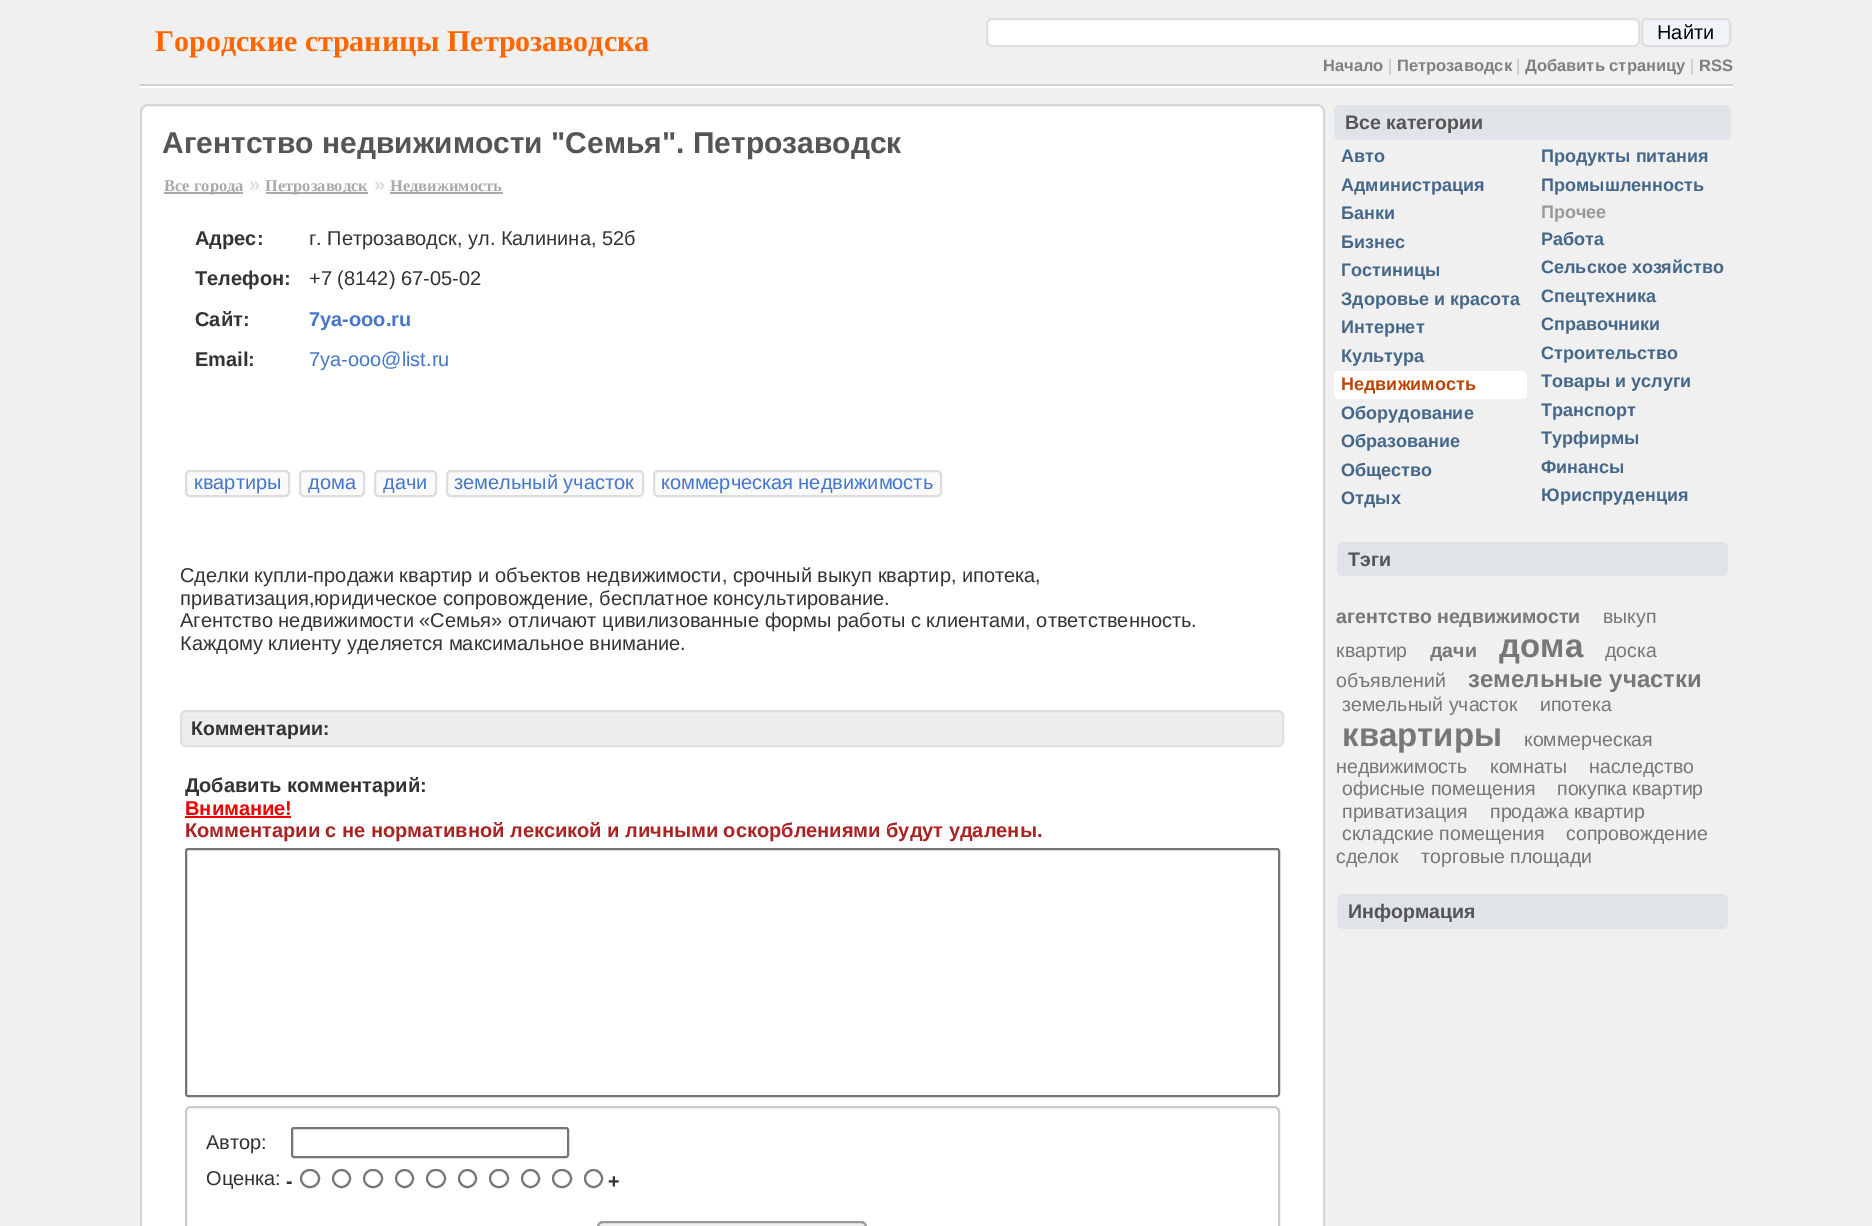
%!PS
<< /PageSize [1872 1226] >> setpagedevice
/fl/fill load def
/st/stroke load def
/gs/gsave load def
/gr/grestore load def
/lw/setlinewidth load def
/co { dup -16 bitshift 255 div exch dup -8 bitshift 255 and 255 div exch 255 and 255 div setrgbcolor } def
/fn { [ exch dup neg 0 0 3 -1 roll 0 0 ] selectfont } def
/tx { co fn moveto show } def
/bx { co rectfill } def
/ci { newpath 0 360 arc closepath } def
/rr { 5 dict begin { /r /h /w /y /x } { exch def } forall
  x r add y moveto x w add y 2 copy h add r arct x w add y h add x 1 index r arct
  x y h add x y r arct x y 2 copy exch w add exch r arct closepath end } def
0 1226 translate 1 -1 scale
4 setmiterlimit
0 0 1872 1226 16#F0F0F0 bx
16#FFFFFF co
987 19 652 27 5 rr gs fl gr
16#DFDFDF co
2 lw
st
16#F0F4F8 co
1642 19 88 27 5 rr gs fl gr
16#DFDFDF co
st
140 84 1593 2 16#D0D0D0 bx
140 86 1593 2 16#FFFFFF bx
141 105 1183 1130 7 rr gs fl gr
16#D6D6D6 co
st
164 192 79 2 16#AAAAAA bx
266 192 102 2 16#AAAAAA bx
390 192 113 2 16#AAAAAA bx
16#FAFAFA co
186 471 103 25 4 rr gs fl gr
16#DDDDDD co
st
16#FAFAFA co
300 471 64 25 4 rr gs fl gr
16#DDDDDD co
st
16#FAFAFA co
375 471 61 25 4 rr gs fl gr
16#DDDDDD co
st
16#FAFAFA co
447 471 196 25 4 rr gs fl gr
16#DDDDDD co
st
16#FAFAFA co
654 471 287 25 4 rr gs fl gr
16#DDDDDD co
st
16#EBEDEF co
181 711 1102 35 5 rr gs fl gr
16#DFDFDF co
st
185 816 106 2 16#EE0000 bx
16#767676 co
186 849 1093 247 2 rr st
16#CCCCCC co
186 1107 1093 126 5 rr st
16#767676 co
292 1128 276 29 2 rr st
301 1170 18 17 8.5 rr st
341.5 1178.5 8.5 ci st
364 1170 18 17 8.5 rr st
404.5 1178.5 8.5 ci st
427 1170 18 17 8.5 rr st
467.5 1178.5 8.5 ci st
490 1170 18 17 8.5 rr st
530.5 1178.5 8.5 ci st
553 1170 18 17 8.5 rr st
593.5 1178.5 8.5 ci st
16#EFEFEF co
598 1222 268 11 5 rr gs fl gr
16#999999 co
st
16#E0E4E8 co
1334 105 397 35 6 rr fl
16#FFFFFF co
1334 371 193 28 5 rr fl
16#E0E4E8 co
1337 542 391 34 6 rr fl
1337 894 391 35 6 rr fl
(Городские страницы Петрозаводска) 155 51 /LiberationSerif-Bold 30 16#FF6600 tx
(Найти) 1657 39 /LiberationSans-Regular 20 16#000000 tx
(Начало) 1323 71 /LiberationSans-Bold 16.5 16#808080 tx
(|) 1388 71 /LiberationSans-Regular 16.5 16#C0C0C0 tx
(Петрозаводск) 1397 71 /LiberationSans-Bold 16.5 16#808080 tx
(|) 1516 71 /LiberationSans-Regular 16.5 16#C0C0C0 tx
(Добавить страницу) 1525 71 /LiberationSans-Bold 16.5 16#808080 tx
(|) 1690 71 /LiberationSans-Regular 16.5 16#C0C0C0 tx
(RSS) 1699 71 /LiberationSans-Bold 16.5 16#808080 tx
(Агентство недвижимости "Семья". Петрозаводск) 162 153 /LiberationSans-Bold 30 16#555555 tx
(Все города) 164 191 /LiberationSerif-Bold 16.5 16#AAAAAA tx
(») 249 191 /LiberationSans-Bold 20 16#DDDDDD tx
(Петрозаводск) 265 191 /LiberationSerif-Bold 16.5 16#AAAAAA tx
(») 374 191 /LiberationSans-Bold 20 16#DDDDDD tx
(Недвижимость) 390 191 /LiberationSerif-Bold 16.5 16#AAAAAA tx
(Адрес:) 195 245 /LiberationSans-Bold 20 16#333333 tx
(г. Петрозаводск, ул. Калинина, 52б) 309 245 /LiberationSans-Regular 20 16#333333 tx
(Телефон:) 195 285 /LiberationSans-Bold 20 16#333333 tx
(+7 \(8142\) 67-05-02) 309 285 /LiberationSans-Regular 20 16#333333 tx
(Сайт:) 195 326 /LiberationSans-Bold 20 16#333333 tx
(7ya-ooo.ru) 309 326 /LiberationSans-Bold 20 16#4477CC tx
(Email:) 195 366 /LiberationSans-Bold 20 16#333333 tx
(7ya-ooo@list.ru) 309 366 /LiberationSans-Regular 20 16#4477CC tx
(квартиры) 194 489 /LiberationSans-Regular 20 16#4477CC tx
(дома) 308 489 /LiberationSans-Regular 20 16#4477CC tx
(дачи) 383 489 /LiberationSans-Regular 20 16#4477CC tx
(земельный участок) 454 489 /LiberationSans-Regular 20 16#4477CC tx
(коммерческая недвижимость) 661 489 /LiberationSans-Regular 20 16#4477CC tx
(Cделки купли-продажи квартир и объектов недвижимости, срочный выкуп квартир, ипотека,) 180 582 /LiberationSans-Regular 20 16#333333 tx
(приватизация,юридическое сопровождение, бесплатное консультирование.) 180 605 /LiberationSans-Regular 20 16#333333 tx
(Агентство недвижимости «Семья» отличают цивилизованные формы работы с клиентами, ответственность.) 180 627 /LiberationSans-Regular 20 16#333333 tx
(Каждому клиенту уделяется максимальное внимание.) 180 650 /LiberationSans-Regular 20 16#333333 tx
(Комментарии:) 191 735 /LiberationSans-Bold 19.5 16#333333 tx
(Добавить комментарий:) 185 792 /LiberationSans-Bold 20 16#333333 tx
(Внимание!) 185 815 /LiberationSans-Bold 20 16#EE0000 tx
(Комментарии с не нормативной лексикой и личными оскорблениями будут удалены.) 185 837 /LiberationSans-Bold 20 16#AA2222 tx
(Автор:) 206 1149 /LiberationSans-Regular 20 16#333333 tx
(Оценка:) 206 1185 /LiberationSans-Regular 20 16#333333 tx
(-) 286 1188 /LiberationSans-Bold 20 16#333333 tx
(+) 608 1188 /LiberationSans-Bold 20 16#333333 tx
(Все категории) 1345 129 /LiberationSans-Bold 19.5 16#555555 tx
(Авто) 1341 162 /LiberationSans-Bold 18 16#446688 tx
(Администрация) 1341 191 /LiberationSans-Bold 18 16#446688 tx
(Банки) 1341 219 /LiberationSans-Bold 18 16#446688 tx
(Бизнес) 1341 248 /LiberationSans-Bold 18 16#446688 tx
(Гостиницы) 1341 276 /LiberationSans-Bold 18 16#446688 tx
(Здоровье и красота) 1341 305 /LiberationSans-Bold 18 16#446688 tx
(Интернет) 1341 333 /LiberationSans-Bold 18 16#446688 tx
(Культура) 1341 362 /LiberationSans-Bold 18 16#446688 tx
(Недвижимость) 1341 390 /LiberationSans-Bold 18 16#BB4400 tx
(Оборудование) 1341 419 /LiberationSans-Bold 18 16#446688 tx
(Образование) 1341 447 /LiberationSans-Bold 18 16#446688 tx
(Общество) 1341 476 /LiberationSans-Bold 18 16#446688 tx
(Отдых) 1341 504 /LiberationSans-Bold 18 16#446688 tx
(Продукты питания) 1541 162 /LiberationSans-Bold 18 16#446688 tx
(Промышленность) 1541 191 /LiberationSans-Bold 18 16#446688 tx
(Прочее) 1541 218 /LiberationSans-Bold 18 16#999999 tx
(Работа) 1541 245 /LiberationSans-Bold 18 16#446688 tx
(Сельское хозяйство) 1541 273 /LiberationSans-Bold 18 16#446688 tx
(Спецтехника) 1541 302 /LiberationSans-Bold 18 16#446688 tx
(Справочники) 1541 330 /LiberationSans-Bold 18 16#446688 tx
(Строительство) 1541 359 /LiberationSans-Bold 18 16#446688 tx
(Товары и услуги) 1541 387 /LiberationSans-Bold 18 16#446688 tx
(Транспорт) 1541 416 /LiberationSans-Bold 18 16#446688 tx
(Турфирмы) 1541 444 /LiberationSans-Bold 18 16#446688 tx
(Финансы) 1541 473 /LiberationSans-Bold 18 16#446688 tx
(Юриспруденция) 1541 501 /LiberationSans-Bold 18 16#446688 tx
(Тэги) 1348 566 /LiberationSans-Bold 19.5 16#555555 tx
(агентство недвижимости) 1336 623 /LiberationSans-Bold 19.5 16#777777 tx
(выкуп) 1603 623 /LiberationSans-Regular 19.5 16#777777 tx
(квартир) 1336 657 /LiberationSans-Regular 19.5 16#777777 tx
(дачи) 1430 657 /LiberationSans-Bold 19.5 16#777777 tx
(дома) 1499 657 /LiberationSans-Bold 33 16#777777 tx
(доска) 1605 657 /LiberationSans-Regular 19.5 16#777777 tx
(объявлений) 1336 687 /LiberationSans-Regular 19.5 16#777777 tx
(земельные участки) 1468 687 /LiberationSans-Bold 24 16#777777 tx
(земельный участок) 1342 711 /LiberationSans-Regular 19.5 16#777777 tx
(ипотека) 1540 711 /LiberationSans-Regular 19.5 16#777777 tx
(квартиры) 1342 746 /LiberationSans-Bold 33 16#777777 tx
(коммерческая) 1524 746 /LiberationSans-Regular 19.5 16#777777 tx
(недвижимость) 1336 773 /LiberationSans-Regular 19.5 16#777777 tx
(комнаты) 1490 773 /LiberationSans-Regular 19.5 16#777777 tx
(наследство) 1589 773 /LiberationSans-Regular 19.5 16#777777 tx
(офисные помещения) 1342 795 /LiberationSans-Regular 19.5 16#777777 tx
(покупка квартир) 1557 795 /LiberationSans-Regular 19.5 16#777777 tx
(приватизация) 1342 818 /LiberationSans-Regular 19.5 16#777777 tx
(продажа квартир) 1490 818 /LiberationSans-Regular 19.5 16#777777 tx
(складские помещения) 1342 840 /LiberationSans-Regular 19.5 16#777777 tx
(сопровождение) 1566 840 /LiberationSans-Regular 19.5 16#777777 tx
(сделок) 1336 863 /LiberationSans-Regular 19.5 16#777777 tx
(торговые площади) 1421 863 /LiberationSans-Regular 19.5 16#777777 tx
(Информация) 1348 918 /LiberationSans-Bold 19.5 16#555555 tx
showpage
